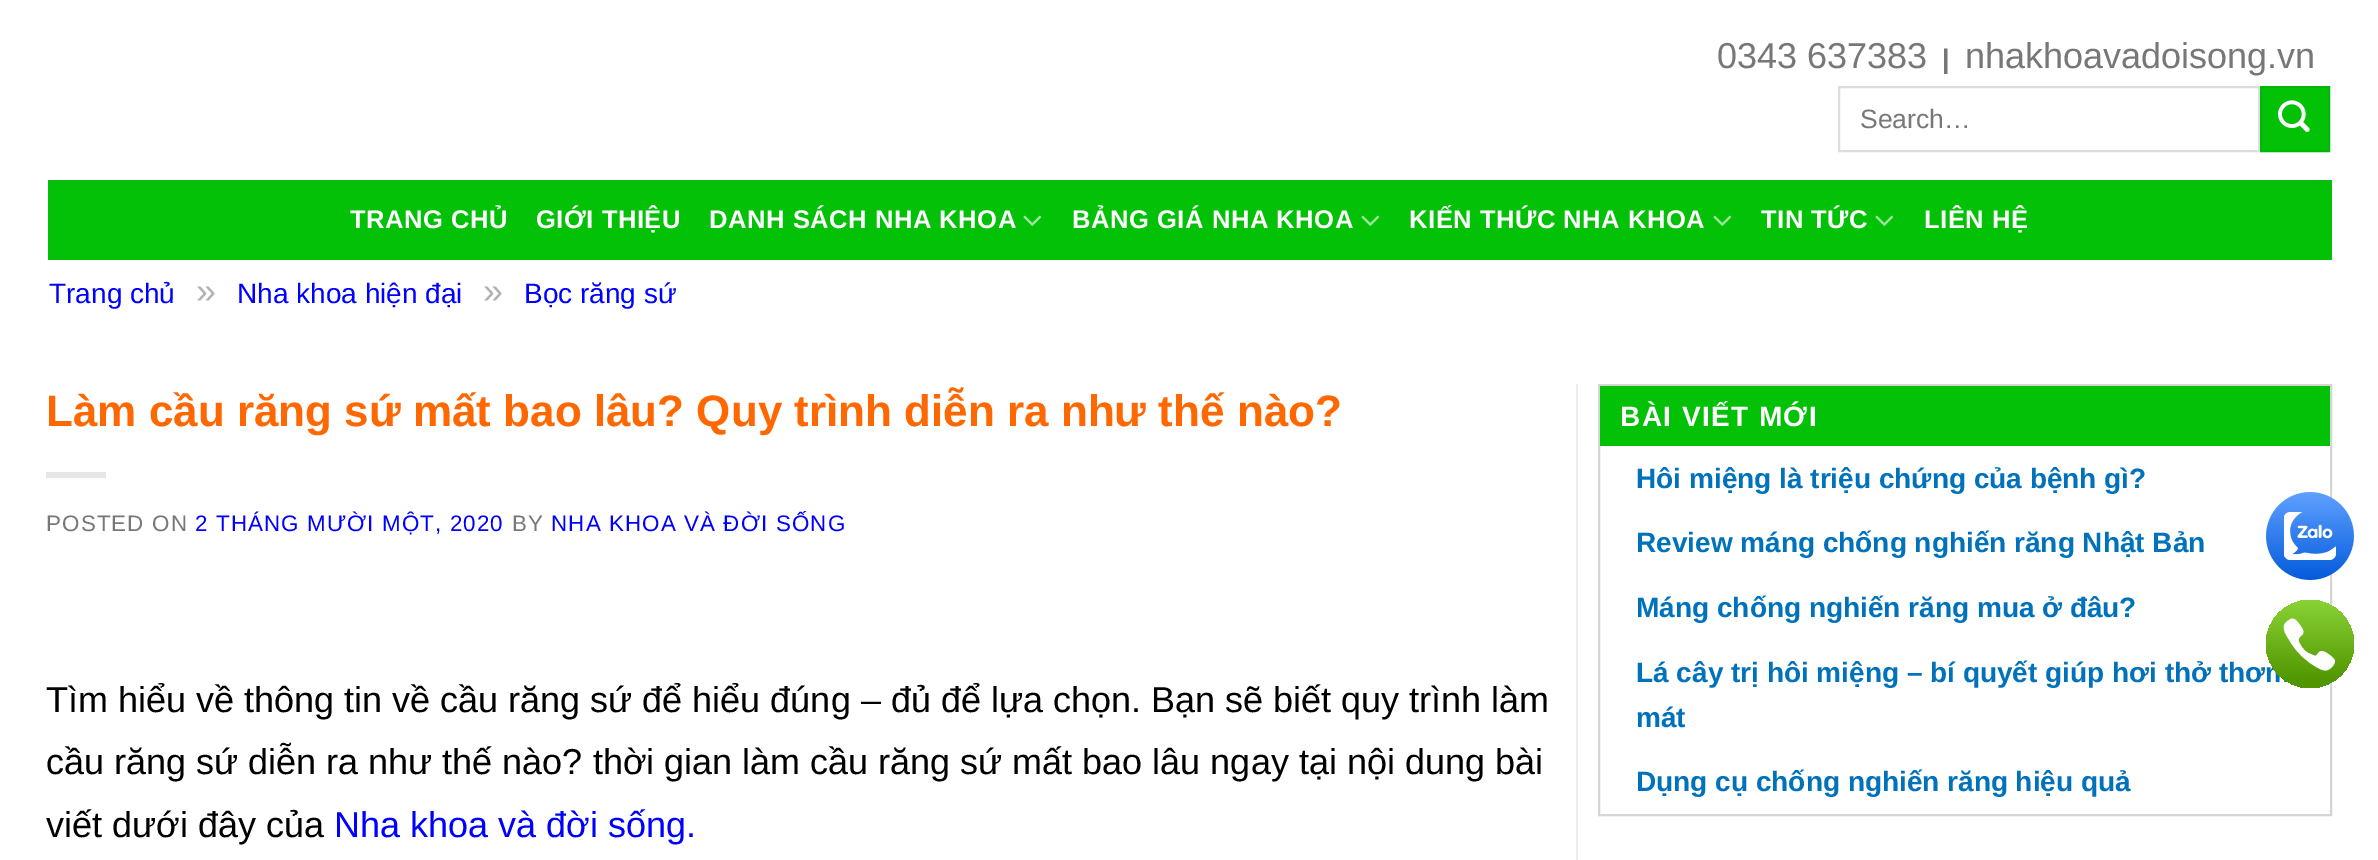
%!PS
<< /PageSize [2378 860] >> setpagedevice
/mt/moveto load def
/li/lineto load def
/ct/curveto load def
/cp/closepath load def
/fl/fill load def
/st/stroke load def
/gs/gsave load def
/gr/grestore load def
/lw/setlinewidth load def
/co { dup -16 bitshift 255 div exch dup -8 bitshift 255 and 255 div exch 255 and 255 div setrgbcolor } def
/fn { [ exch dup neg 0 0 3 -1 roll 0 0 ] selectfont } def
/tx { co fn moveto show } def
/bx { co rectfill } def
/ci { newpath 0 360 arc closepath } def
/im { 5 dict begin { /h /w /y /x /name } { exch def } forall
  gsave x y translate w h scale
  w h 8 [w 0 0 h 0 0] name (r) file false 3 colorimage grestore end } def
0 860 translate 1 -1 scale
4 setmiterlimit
0 0 2378 860 16#FFFFFF bx
16#DDDDDD co
2 lw
1839 87 420 64 rectstroke
16#02C107 co
2261 87 mt 2329 87 li 2329 151 li 2261 151 li cp gs fl gr
16#02B707 co
st
(media/1.raw) 2278 100 32 32 im
48 180 2284 80 16#02C107 bx
50 180 2280 2 16#0EBA12 bx
(media/2.raw) 1023 215 19 11 im
(media/2.raw) 1361 215 19 11 im
(media/2.raw) 1713 215 19 11 im
(media/2.raw) 1875 215 19 11 im
46 472 60 6 16#E6E6E6 bx
1576 384 2 476 16#ECECEC bx
16#D5D5D5 co
1599 385 732 430 rectstroke
1600 386 730 60 16#02C107 bx
(media/3.raw) 2266 492 88 88 im
(0343 637383) 1717 68 /LiberationSans-Regular 36 16#777777 tx
(|) 1942 68 /LiberationSans-Bold 27 16#777777 tx
(nhakhoavadoisong.vn) 1965 68 /LiberationSans-Regular 36 16#777777 tx
(Search…) 1860 128 /LiberationSans-Regular 26.5 16#777777 tx
/LiberationSans-Bold 25.6 fn
16#FFFFFF co
350 228 mt .5 0 (TRANG CHỦ) ashow
536 228 mt .5 0 (GIỚI THIỆU) ashow
709 228 mt .5 0 (DANH SÁCH NHA KHOA) ashow
1072 228 mt .5 0 (BẢNG GIÁ NHA KHOA) ashow
1409 228 mt .5 0 (KIẾN THỨC NHA KHOA) ashow
1761 228 mt .5 0 (TIN TỨC) ashow
1924 228 mt .5 0 (LIÊN HỆ) ashow
(Trang chủ) 49 303 /LiberationSans-Regular 28 16#0000FF tx
(») 196 303 /LiberationSans-Regular 36 16#B2B2B2 tx
(Nha khoa hiện đại) 237 303 /LiberationSans-Regular 28 16#0000FF tx
(») 483 303 /LiberationSans-Regular 36 16#B2B2B2 tx
(Bọc răng sứ) 524 303 /LiberationSans-Regular 28 16#0000FF tx
(Làm cầu răng sứ mất bao lâu? Quy trình diễn ra như thế nào?) 46 426 /LiberationSans-Bold 44 16#FF6700 tx
/LiberationSans-Regular 22.4 fn
16#777777 co
46 531 mt 1.1 0 (POSTED ON) ashow
16#0000FF co
195 531 mt 1.1 0 (2 THÁNG MƯỜI MỘT, 2020) ashow
16#777777 co
512 531 mt 1.1 0 (BY) ashow
16#0000FF co
551 531 mt 1.1 0 (NHA KHOA VÀ ĐỜI SỐNG) ashow
(Tìm hiểu về thông tin về cầu răng sứ để hiểu đúng – đủ để lựa chọn. Bạn sẽ biết quy trình làm) 46 712 /LiberationSans-Regular 36 16#000000 tx
(cầu răng sứ diễn ra như thế nào? thời gian làm cầu răng sứ mất bao lâu ngay tại nội dung bài) 46 774 /LiberationSans-Regular 36 16#000000 tx
(viết dưới đây của) 46 837 /LiberationSans-Regular 36 16#000000 tx
(Nha khoa và đời sống.) 334 837 /LiberationSans-Regular 36 16#0000FF tx
/LiberationSans-Bold 28 fn
16#FFFFFF co
1620 426 mt 1.4 0 (BÀI VIẾT MỚI) ashow
(Hôi miệng là triệu chứng của bệnh gì?) 1636 488 /LiberationSans-Bold 28 16#0072BC tx
(Review máng chống nghiến răng Nhật Bản) 1636 552 /LiberationSans-Bold 28 16#0072BC tx
(Máng chống nghiến răng mua ở đâu?) 1636 617 /LiberationSans-Bold 28 16#0072BC tx
(Lá cây trị hôi miệng – bí quyết giúp hơi thở thơm) 1636 682 /LiberationSans-Bold 28 16#0072BC tx
(mát) 1636 727 /LiberationSans-Bold 28 16#0072BC tx
(Dụng cụ chống nghiến răng hiệu quả) 1636 791 /LiberationSans-Bold 28 16#0072BC tx
gs 2310 644 44 ci clip newpath
<< /ShadingType 2 /ColorSpace /DeviceRGB /Coords [2310 600 2310 681] /Extend [true true] /Function << /FunctionType 2 /Domain [0 1] /C0 [.541 .827 .212] /C1 [.314 .588 0] /N 1 >> >> shfill gr
16#FFFFFF co
2294 619 mt 2297 620 2300 625 2302 628 ct 2308 638 2292 634 2302 647 ct 2304 650 2307 653 2311 654 ct 2319 659 2316 651 2322 651 ct 2325 651 2335 658 2335 661 ct 2335 663 2334 665 2332 667 ct 2327 672 2324 671 2318 668 ct 2307 662 2298 654 2291 643 ct 2285 633 li 2283 626 2283 624 2289 620 ct 2290 619 2292 618 2294 619 ct cp eofill
showpage
